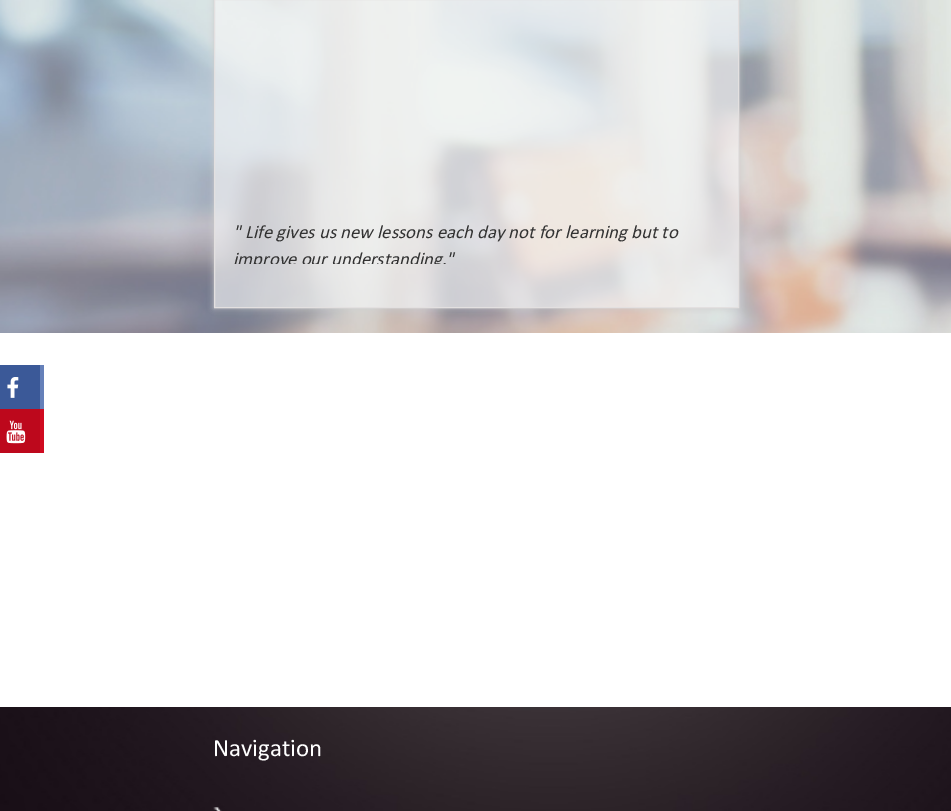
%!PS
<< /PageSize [951 811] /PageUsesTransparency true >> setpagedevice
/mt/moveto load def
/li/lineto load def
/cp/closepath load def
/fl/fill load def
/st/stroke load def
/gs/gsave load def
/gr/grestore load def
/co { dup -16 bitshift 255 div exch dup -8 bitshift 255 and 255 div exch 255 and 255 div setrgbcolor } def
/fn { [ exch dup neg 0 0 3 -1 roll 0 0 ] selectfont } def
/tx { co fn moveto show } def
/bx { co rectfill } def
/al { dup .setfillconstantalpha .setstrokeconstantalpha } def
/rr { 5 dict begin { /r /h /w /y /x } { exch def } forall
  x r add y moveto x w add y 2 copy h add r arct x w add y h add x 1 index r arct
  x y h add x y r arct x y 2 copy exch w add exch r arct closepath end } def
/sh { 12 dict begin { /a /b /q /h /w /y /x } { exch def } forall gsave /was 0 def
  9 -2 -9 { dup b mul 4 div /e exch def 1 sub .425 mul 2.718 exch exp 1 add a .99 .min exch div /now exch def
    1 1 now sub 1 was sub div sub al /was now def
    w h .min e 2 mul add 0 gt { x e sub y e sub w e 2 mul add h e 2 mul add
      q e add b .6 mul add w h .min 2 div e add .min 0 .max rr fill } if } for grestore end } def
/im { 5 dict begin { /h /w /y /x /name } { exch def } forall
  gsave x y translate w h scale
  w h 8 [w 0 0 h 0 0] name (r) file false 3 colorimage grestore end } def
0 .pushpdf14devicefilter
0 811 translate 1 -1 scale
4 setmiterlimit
0 0 951 811 16#FFFFFF bx
(media/1.raw) 0 0 951 333 im
gs
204 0 mt 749 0 li 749 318 li 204 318 li cp 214 -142 mt 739 -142 li 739 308 li 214 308 li cp eoclip newpath
16#CCCCCC co
214 -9 525 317 0 3 1 sh
gr
0.65 al
16#F6F6F6 co
214.5 -.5 mt 738.5 -.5 li 738.5 307.5 li 214.5 307.5 li cp fl
1 al
16#E3E0E0 co
214.5 -.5 mt 738.5 -.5 li 738.5 307.5 li 214.5 307.5 li cp st
0 365 40 44 16#3B5998 bx
40 365 4 44 16#6580B9 bx
(media/2.raw) 7 377 12 21 im
0 409 40 44 16#BD081C bx
40 409 4 44 16#D00A20 bx
(media/3.raw) 6 420 20 24 im
(media/4.raw) 0 707 951 104 im
(media/5.raw) 213 807 9 4 im
(" Life gives us new lessons each day not for learning but to) 233 238 /Calibri-Italic 18.75 16#333333 tx
gs
234 0 485 264 rectclip
(improve our understanding.") 233 265 /Calibri-Italic 18.75 16#333333 tx
gr
(Navigation) 213 756 /Calibri-Regular 25 16#FFFFFF tx
.poppdf14devicefilter showpage
